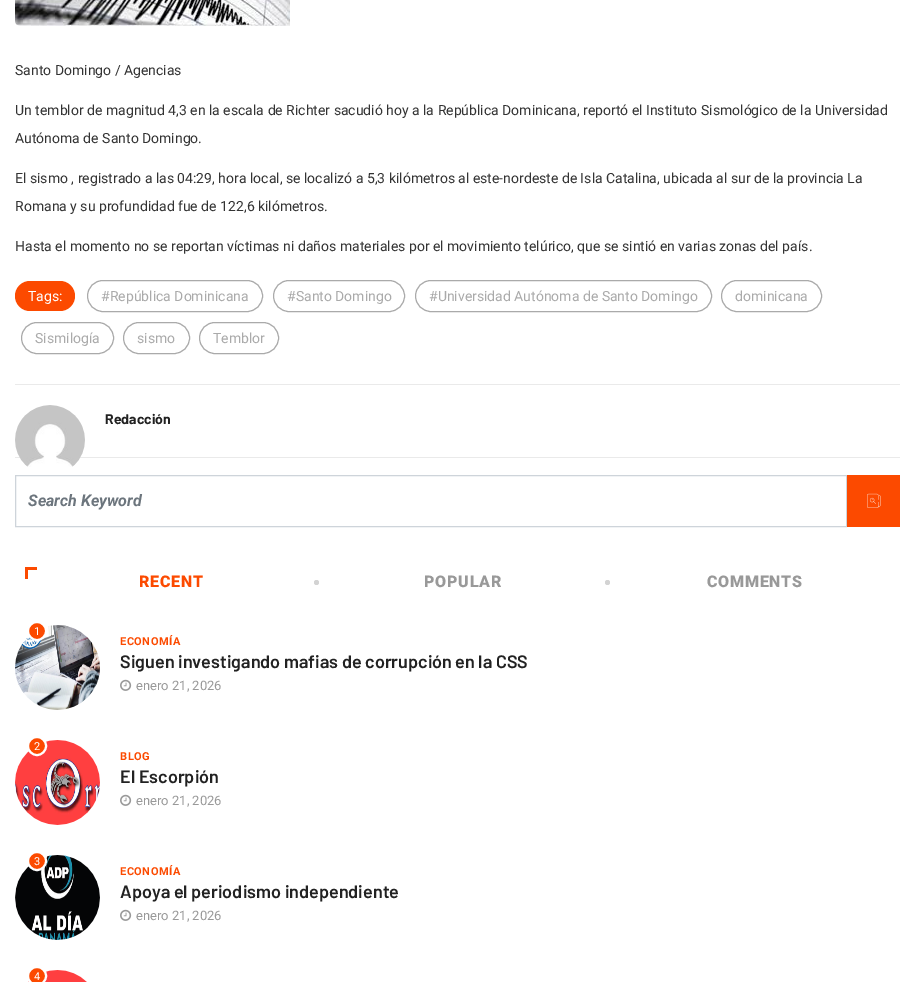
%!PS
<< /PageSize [915 982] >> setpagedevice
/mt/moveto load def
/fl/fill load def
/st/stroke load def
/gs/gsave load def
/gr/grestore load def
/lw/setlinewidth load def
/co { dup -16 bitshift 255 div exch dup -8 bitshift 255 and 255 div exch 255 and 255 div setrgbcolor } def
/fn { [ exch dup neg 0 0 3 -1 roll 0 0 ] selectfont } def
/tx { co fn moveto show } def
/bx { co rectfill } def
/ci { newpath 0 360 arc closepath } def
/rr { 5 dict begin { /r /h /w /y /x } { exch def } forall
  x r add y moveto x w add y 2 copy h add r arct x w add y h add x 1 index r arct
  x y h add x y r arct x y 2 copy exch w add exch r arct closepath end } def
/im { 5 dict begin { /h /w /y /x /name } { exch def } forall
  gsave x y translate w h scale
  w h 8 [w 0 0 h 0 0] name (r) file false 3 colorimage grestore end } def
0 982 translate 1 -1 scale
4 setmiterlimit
0 0 915 982 16#FFFFFF bx
(media/1.raw) 15 0 275 26 im
16#FC4A00 co
15 281 60 30 15 rr fl
16#AAAAAA co
87.5 280.5 175 31 15.5 rr st
273.5 280.5 131 31 15.5 rr st
415.5 280.5 296 31 15.5 rr st
721.5 280.5 100 31 15.5 rr st
21.5 322.5 92 31 15.5 rr st
123.5 322.5 66 31 15.5 rr st
199.5 322.5 79 31 15.5 rr st
15 384 885 1 16#EAEAEA bx
15 457 885 1 16#EAEAEA bx
(media/2.raw) 15 405 70 62 im
16#CED4DA co
15.5 475.5 831 51 rectstroke
847 475 53 52 16#FC4A00 bx
(media/3.raw) 867 493 14 15 im
25 567 3 12 16#FC4A00 bx
25 567 12 3 16#FC4A00 bx
16#D3D3D3 co
316.5 582.5 2.5 ci fl
607.5 582.5 2.5 ci fl
(media/4.raw) 15 625 85 85 im
16#FC4A00 co
37 631 9 ci gs fl gr
16#FFFFFF co
2 lw
st
(media/5.raw) 120 679 12 12 im
(media/6.raw) 15 740 85 85 im
16#FC4A00 co
37 746 9 ci gs fl gr
16#FFFFFF co
st
(media/5.raw) 120 794 12 12 im
(media/7.raw) 15 855 85 85 im
16#FC4A00 co
37 861 9 ci gs fl gr
16#FFFFFF co
st
(media/5.raw) 120 909 12 12 im
(media/8.raw) 28 970 59 12 im
16#FC4A00 co
37 976 9 ci gs fl gr
16#FFFFFF co
st
(Santo Domingo / Agencias) 15 75 /Roboto-Regular 14 16#333333 tx
(Un temblor de magnitud 4,3 en la escala de Richter sacudió hoy a la República Dominicana, reportó el Instituto Sismológico de la Universidad) 15 115 /Roboto-Regular 14 16#333333 tx
(Autónoma de Santo Domingo.) 15 143 /Roboto-Regular 14 16#333333 tx
(El sismo , registrado a las 04:29, hora local, se localizó a 5,3 kilómetros al este-nordeste de Isla Catalina, ubicada al sur de la provincia La) 15 183 /Roboto-Regular 14 16#333333 tx
(Romana y su profundidad fue de 122,6 kilómetros.) 15 211 /Roboto-Regular 14 16#333333 tx
(Hasta el momento no se reportan víctimas ni daños materiales por el movimiento telúrico, que se sintió en varias zonas del país.) 15 251 /Roboto-Regular 14 16#333333 tx
(Tags:) 28 301 /Roboto-Regular 14 16#FFFFFF tx
(#República Dominicana) 101 301 /Roboto-Regular 14 16#AAAAAA tx
(#Santo Domingo) 287 301 /Roboto-Regular 14 16#AAAAAA tx
(#Universidad Autónoma de Santo Domingo) 429 301 /Roboto-Regular 14 16#AAAAAA tx
(dominicana) 735 301 /Roboto-Regular 14 16#AAAAAA tx
(Sismilogía) 35 343 /Roboto-Regular 14 16#AAAAAA tx
(sismo) 137 343 /Roboto-Regular 14 16#AAAAAA tx
(Temblor) 213 343 /Roboto-Regular 14 16#AAAAAA tx
(Redacción) 105 424 /Barlow-Bold 14 16#222222 tx
(Search Keyword) 28 506 /Roboto-BoldItalic 16 16#6C757D tx
/Roboto-Black 16 fn
16#FC4A00 co
139 587 mt .75 0 (RECENT) ashow
16#999999 co
424 587 mt .75 0 (POPULAR) ashow
707 587 mt .75 0 (COMMENTS) ashow
(1) 34 635 /Roboto-Regular 11 16#FFFFFF tx
/Roboto-Bold 11 fn
16#FC4A00 co
120 645 mt .5 0 (ECONOMÍA) ashow
(Siguen investigando mafias de corrupción en la CSS) 120 668 /Barlow-SemiBold 18 16#222222 tx
(enero 21, 2026) 136 690 /Roboto-Regular 13 16#999999 tx
(2) 34 750 /Roboto-Regular 11 16#FFFFFF tx
/Roboto-Bold 11 fn
16#FC4A00 co
120 760 mt .5 0 (BLOG) ashow
(El Escorpión) 120 783 /Barlow-SemiBold 18 16#222222 tx
(enero 21, 2026) 136 805 /Roboto-Regular 13 16#999999 tx
(3) 34 865 /Roboto-Regular 11 16#FFFFFF tx
/Roboto-Bold 11 fn
16#FC4A00 co
120 875 mt .5 0 (ECONOMÍA) ashow
(Apoya el periodismo independiente) 120 898 /Barlow-SemiBold 18 16#222222 tx
(enero 21, 2026) 136 920 /Roboto-Regular 13 16#999999 tx
(4) 34 980 /Roboto-Regular 11 16#FFFFFF tx
showpage
